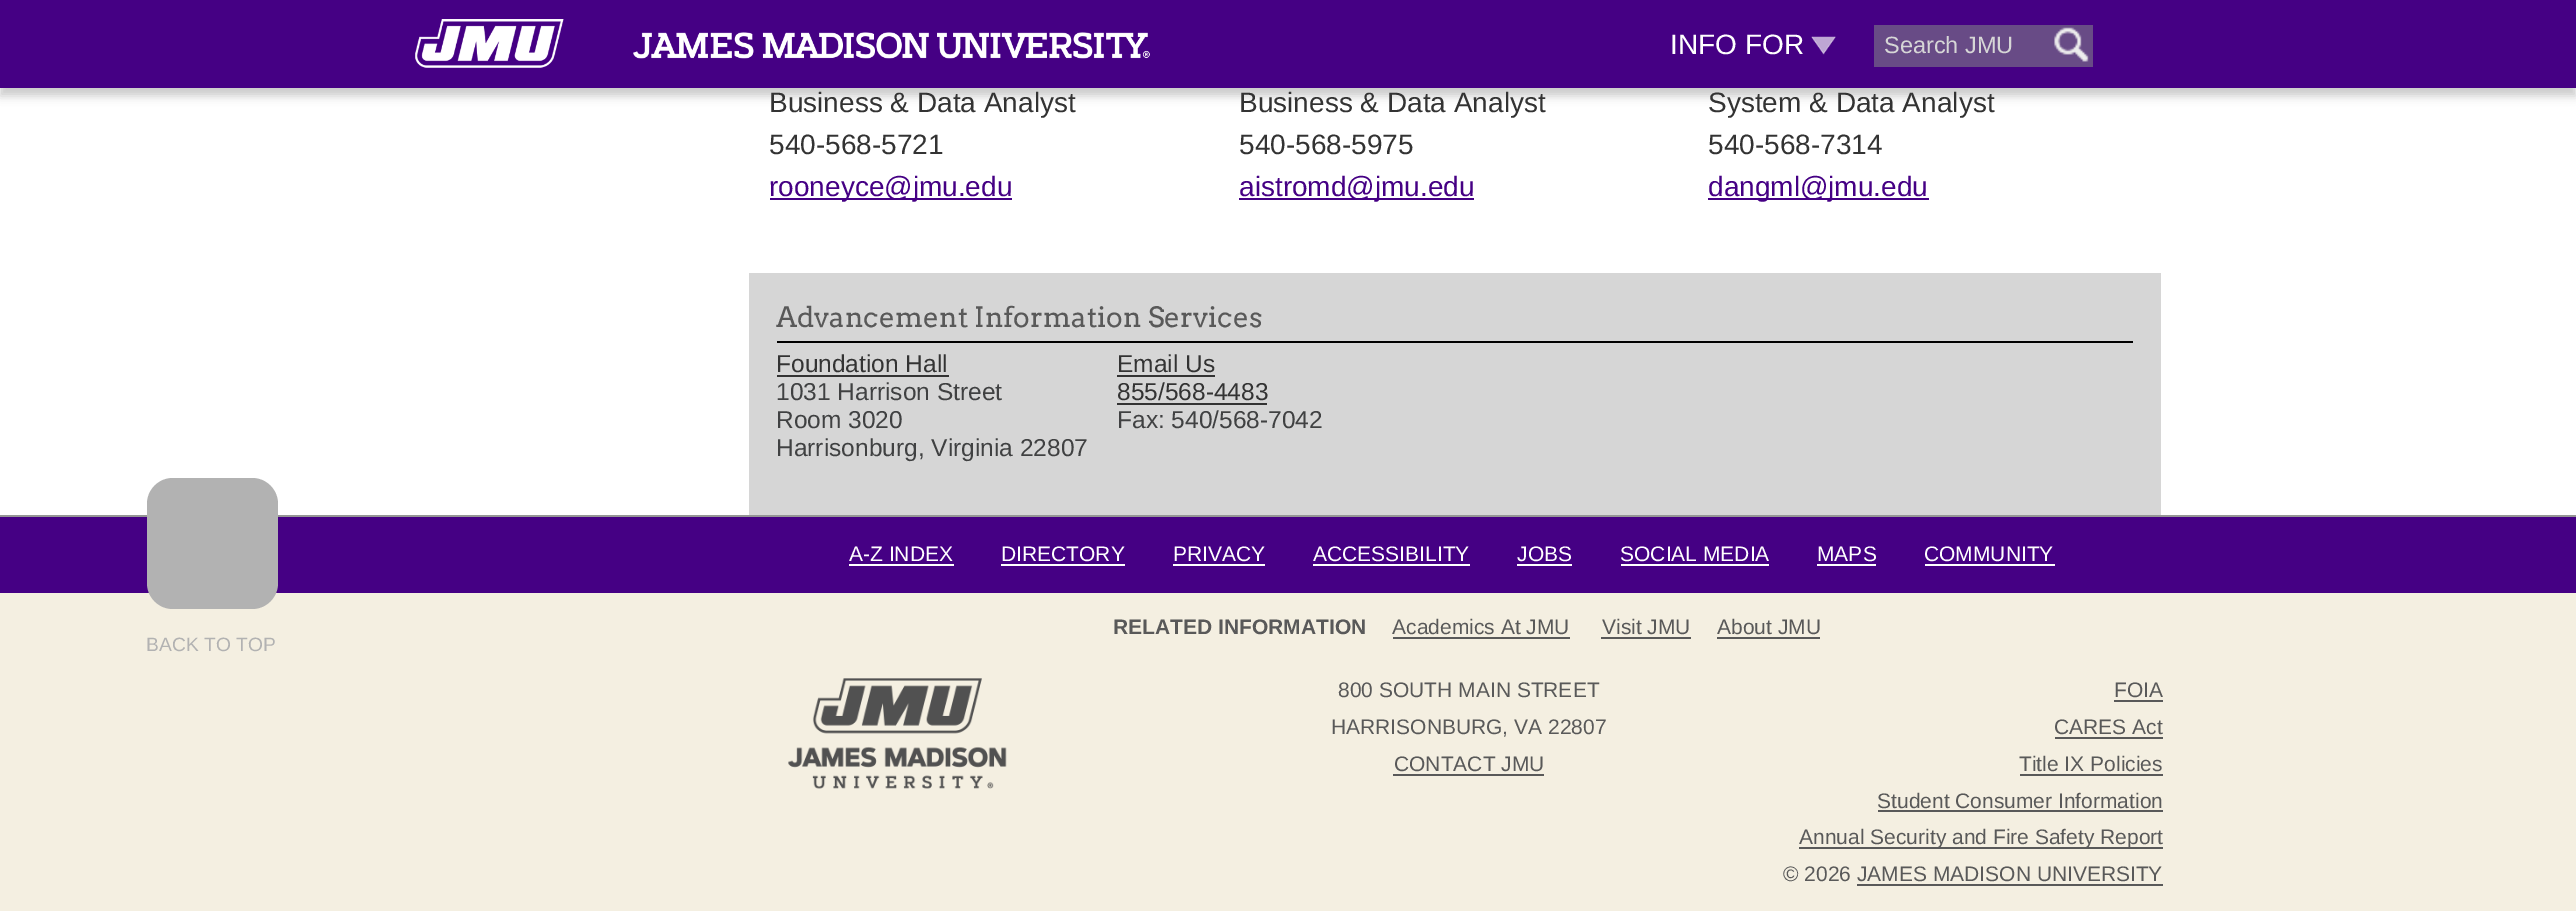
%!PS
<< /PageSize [2576 911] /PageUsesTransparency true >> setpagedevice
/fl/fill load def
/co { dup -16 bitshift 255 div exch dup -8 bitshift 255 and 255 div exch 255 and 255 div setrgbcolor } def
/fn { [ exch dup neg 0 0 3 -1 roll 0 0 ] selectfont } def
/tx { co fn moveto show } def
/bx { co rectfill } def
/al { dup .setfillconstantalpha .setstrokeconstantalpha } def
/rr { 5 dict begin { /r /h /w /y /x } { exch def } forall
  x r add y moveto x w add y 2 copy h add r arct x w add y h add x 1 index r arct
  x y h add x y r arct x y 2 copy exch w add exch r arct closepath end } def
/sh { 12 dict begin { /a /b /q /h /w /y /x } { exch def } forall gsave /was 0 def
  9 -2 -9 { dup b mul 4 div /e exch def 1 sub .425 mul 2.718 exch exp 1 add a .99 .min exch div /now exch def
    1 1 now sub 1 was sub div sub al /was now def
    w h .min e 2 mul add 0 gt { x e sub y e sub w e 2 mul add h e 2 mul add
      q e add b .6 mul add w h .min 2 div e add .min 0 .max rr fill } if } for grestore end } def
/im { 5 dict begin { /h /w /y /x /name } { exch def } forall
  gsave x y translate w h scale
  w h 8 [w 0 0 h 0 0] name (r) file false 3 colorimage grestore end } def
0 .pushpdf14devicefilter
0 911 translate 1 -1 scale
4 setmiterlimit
0 0 2576 911 16#FFFFFF bx
16#000000 co
0 9 2576 87 0 4.5 .2 sh
0 0 2576 88 16#450084 bx
(media/1.raw) 415 19 735 49 im
(media/2.raw) 1811 36 25 19 im
1874 25 219 42 16#684B86 bx
(media/3.raw) 2054 27 35 35 im
770 198 242 2 16#450084 bx
1239 198 235 2 16#450084 bx
1708 198 221 2 16#450084 bx
749 273 1412 242 16#D6D6D6 bx
777 341 1356 2 16#000000 bx
777 375 172 2 16#333333 bx
1117 375 98 2 16#333333 bx
1117 403 150 2 16#333333 bx
0 517 2576 76 16#450084 bx
0 515 2576 2 16#959595 bx
0 593 2576 318 16#F4EFE1 bx
16#B2B2B2 co
147 478 131 131 26 rr fl
849 564 105 2 16#FFFFFF bx
1001 564 124 2 16#FFFFFF bx
1173 564 92 2 16#FFFFFF bx
1313 564 157 2 16#FFFFFF bx
1517 564 55 2 16#FFFFFF bx
1621 564 148 2 16#FFFFFF bx
1817 564 59 2 16#FFFFFF bx
1925 564 130 2 16#FFFFFF bx
1393 637 177 2 16#595959 bx
1601 637 90 2 16#595959 bx
1717 637 103 2 16#595959 bx
(media/4.raw) 788 678 219 111 im
1393 774 151 2 16#595959 bx
2114 700 49 2 16#595959 bx
2055 737 108 2 16#595959 bx
2020 774 143 2 16#595959 bx
1878 810 285 2 16#595959 bx
1799 847 364 2 16#595959 bx
1857 884 306 2 16#595959 bx
(INFO FOR) 1670 54 /LiberationSans-Regular 28 16#FFFFFF tx
(Search JMU) 1884 53 /LiberationSans-Regular 23.5 16#D6D6D6 tx
(Business & Data Analyst) 769 112 /LiberationSans-Regular 28 16#333333 tx
(540-568-5721) 769 154 /LiberationSans-Regular 28 16#333333 tx
(rooneyce@jmu.edu) 769 196 /LiberationSans-Regular 28 16#450084 tx
(Business & Data Analyst) 1239 112 /LiberationSans-Regular 28 16#333333 tx
(540-568-5975) 1239 154 /LiberationSans-Regular 28 16#333333 tx
(aistromd@jmu.edu) 1239 196 /LiberationSans-Regular 28 16#450084 tx
(System & Data Analyst) 1708 112 /LiberationSans-Regular 28 16#333333 tx
(540-568-7314) 1708 154 /LiberationSans-Regular 28 16#333333 tx
(dangml@jmu.edu) 1708 196 /LiberationSans-Regular 28 16#450084 tx
(Advancement Information Services) 776 327 /Arvo-Regular 28 16#595959 tx
(Foundation Hall) 776 372 /LiberationSans-Regular 24.5 16#333333 tx
(1031 Harrison Street) 776 400 /LiberationSans-Regular 24.5 16#404142 tx
(Room 3020) 776 428 /LiberationSans-Regular 24.5 16#404142 tx
(Harrisonburg, Virginia 22807) 776 456 /LiberationSans-Regular 24.5 16#404142 tx
(Email Us) 1117 372 /LiberationSans-Regular 24.5 16#333333 tx
(855/568-4483) 1117 400 /LiberationSans-Regular 24.5 16#333333 tx
(Fax: 540/568-7042) 1117 428 /LiberationSans-Regular 24.5 16#404142 tx
(BACK TO TOP) 146 651 /LiberationSans-Regular 19.25 16#B2B2B2 tx
(A-Z INDEX) 849 561 /LiberationSans-Regular 21 16#FFFFFF tx
(DIRECTORY) 1001 561 /LiberationSans-Regular 21 16#FFFFFF tx
(PRIVACY) 1173 561 /LiberationSans-Regular 21 16#FFFFFF tx
(ACCESSIBILITY) 1313 561 /LiberationSans-Regular 21 16#FFFFFF tx
(JOBS) 1517 561 /LiberationSans-Regular 21 16#FFFFFF tx
(SOCIAL MEDIA) 1620 561 /LiberationSans-Regular 21 16#FFFFFF tx
(MAPS) 1817 561 /LiberationSans-Regular 21 16#FFFFFF tx
(COMMUNITY) 1924 561 /LiberationSans-Regular 21 16#FFFFFF tx
(RELATED INFORMATION) 1113 634 /LiberationSans-Bold 21 16#595959 tx
(Academics At JMU) 1392 634 /LiberationSans-Regular 21 16#595959 tx
(Visit JMU) 1602 634 /LiberationSans-Regular 21 16#595959 tx
(About JMU) 1717 634 /LiberationSans-Regular 21 16#595959 tx
(800 SOUTH MAIN STREET) 1338 697 /LiberationSans-Regular 21 16#595959 tx
(HARRISONBURG, VA 22807) 1331 734 /LiberationSans-Regular 21 16#595959 tx
(CONTACT JMU) 1394 771 /LiberationSans-Regular 21 16#595959 tx
(FOIA) 2114 697 /LiberationSans-Regular 21 16#595959 tx
(CARES Act) 2054 734 /LiberationSans-Regular 21 16#595959 tx
(Title IX Policies) 2019 771 /LiberationSans-Regular 21 16#595959 tx
(Student Consumer Information) 1877 808 /LiberationSans-Regular 21 16#595959 tx
(Annual Security and Fire Safety Report) 1799 844 /LiberationSans-Regular 21 16#595959 tx
(© 2026 JAMES MADISON UNIVERSITY) 1783 881 /LiberationSans-Regular 21 16#595959 tx
.poppdf14devicefilter showpage
